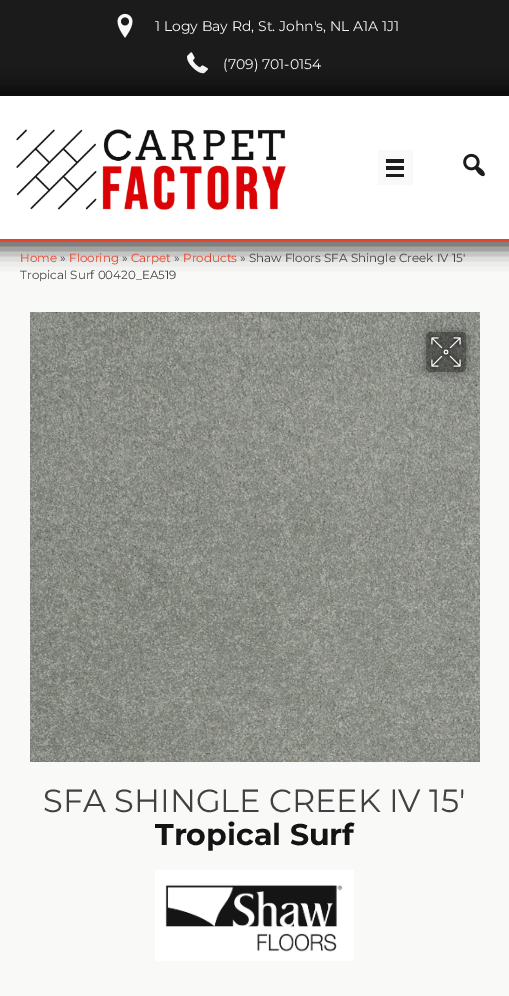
%!PS
<< /PageSize [509 996] /PageUsesTransparency true >> setpagedevice
/mt/moveto load def
/li/lineto load def
/ct/curveto load def
/cp/closepath load def
/fl/fill load def
/gs/gsave load def
/gr/grestore load def
/co { dup -16 bitshift 255 div exch dup -8 bitshift 255 and 255 div exch 255 and 255 div setrgbcolor } def
/fn { [ exch dup neg 0 0 3 -1 roll 0 0 ] selectfont } def
/tx { co fn moveto show } def
/bx { co rectfill } def
/al { dup .setfillconstantalpha .setstrokeconstantalpha } def
/rr { 5 dict begin { /r /h /w /y /x } { exch def } forall
  x r add y moveto x w add y 2 copy h add r arct x w add y h add x 1 index r arct
  x y h add x y r arct x y 2 copy exch w add exch r arct closepath end } def
/sh { 12 dict begin { /a /b /q /h /w /y /x } { exch def } forall gsave /was 0 def
  9 -2 -9 { dup b mul 4 div /e exch def 1 sub .425 mul 2.718 exch exp 1 add a .99 .min exch div /now exch def
    1 1 now sub 1 was sub div sub al /was now def
    w h .min e 2 mul add 0 gt { x e sub y e sub w e 2 mul add h e 2 mul add
      q e add b .6 mul add w h .min 2 div e add .min 0 .max rr fill } if } for grestore end } def
/im { 5 dict begin { /h /w /y /x /name } { exch def } forall
  gsave x y translate w h scale
  w h 8 [w 0 0 h 0 0] name (r) file false 3 colorimage grestore end } def
0 .pushpdf14devicefilter
0 996 translate 1 -1 scale
4 setmiterlimit
0 0 509 996 16#F9F9F8 bx
0 0 509 96 16#1B1B1B bx
(media/1.raw) 117 13 16 25 im
(media/2.raw) 187 52 21 22 im
16#000000 co
-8 88 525 161 0 10 .69 sh
0 96 509 143 16#FFFFFF bx
0 239 509 2 16#EA4027 bx
(media/3.raw) 16 129 271 82 im
378 150 35 35 16#F9F9F9 bx
386 159 18 4 16#1B1B1B bx
386 166 18 4 16#1B1B1B bx
386 174 18 3 16#1B1B1B bx
(media/4.raw) 463 153 22 24 im
(media/5.raw) 30 312 450 450 im
gs
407 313 mt 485 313 li 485 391 li 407 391 li cp 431 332 mt 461 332 li 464 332 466 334 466 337 ct 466 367 li 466 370 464 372 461 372 ct 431 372 li 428 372 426 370 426 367 ct 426 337 li 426 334 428 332 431 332 ct cp eoclip newpath
16#000000 co
426 332 40 40 5 6 .41 sh
gr
0.4 al
16#000000 co
426 332 40 40 5 rr fl
1 al
(media/6.raw) 428 334 36 36 im
(media/7.raw) 155 870 199 91 im
(1 Logy Bay Rd, St. John's, NL A1A 1J1) 155 31 /Montserrat-Regular 14 16#F9F9F8 tx
(\(709\) 701-0154) 223 69 /Montserrat-Regular 14 16#F9F9F8 tx
(Home) 20 262 /Montserrat-Regular 11.9 16#EA4027 tx
(») 60 262 /Montserrat-Regular 11.9 16#414042 tx
(Flooring) 69 262 /Montserrat-Regular 11.9 16#EA4027 tx
(») 122 262 /Montserrat-Regular 11.9 16#414042 tx
(Carpet) 131 262 /Montserrat-Regular 11.9 16#EA4027 tx
(») 174 262 /Montserrat-Regular 11.9 16#414042 tx
(Products) 183 262 /Montserrat-Regular 11.9 16#EA4027 tx
(» Shaw Floors SFA Shingle Creek IV 15′) 240 262 /Montserrat-Regular 11.9 16#414042 tx
(Tropical Surf 00420_EA519) 20 279 /Montserrat-Regular 11.9 16#414042 tx
(SFA SHINGLE CREEK IV 15') 43 812 /Montserrat-Regular 32 16#414042 tx
(Tropical Surf) 155 845 /Montserrat-Bold 30 16#141414 tx
.poppdf14devicefilter showpage
